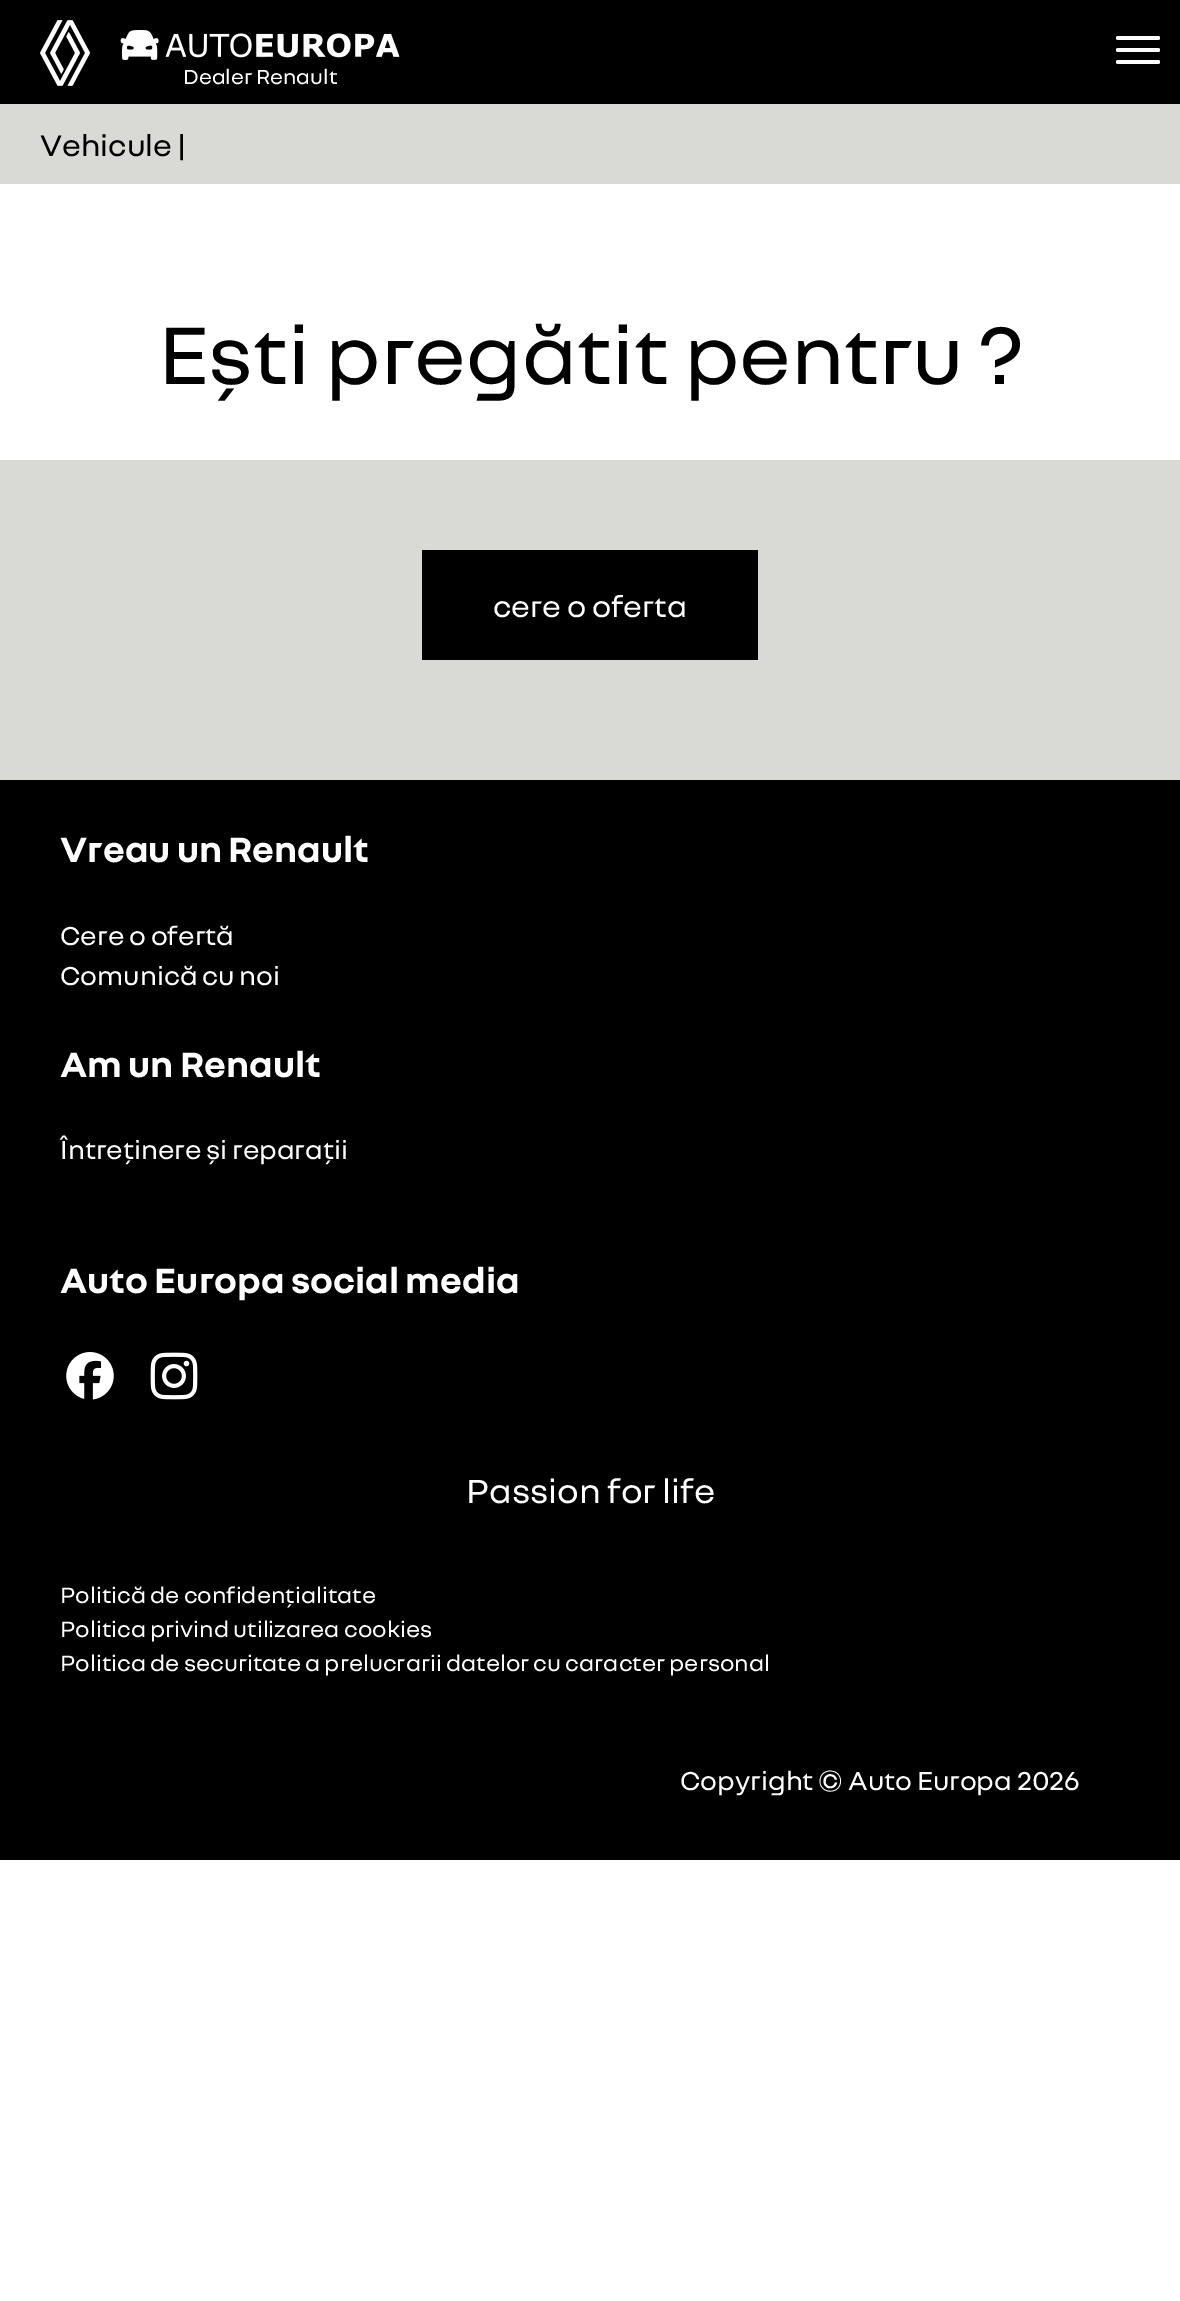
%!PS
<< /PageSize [1180 2301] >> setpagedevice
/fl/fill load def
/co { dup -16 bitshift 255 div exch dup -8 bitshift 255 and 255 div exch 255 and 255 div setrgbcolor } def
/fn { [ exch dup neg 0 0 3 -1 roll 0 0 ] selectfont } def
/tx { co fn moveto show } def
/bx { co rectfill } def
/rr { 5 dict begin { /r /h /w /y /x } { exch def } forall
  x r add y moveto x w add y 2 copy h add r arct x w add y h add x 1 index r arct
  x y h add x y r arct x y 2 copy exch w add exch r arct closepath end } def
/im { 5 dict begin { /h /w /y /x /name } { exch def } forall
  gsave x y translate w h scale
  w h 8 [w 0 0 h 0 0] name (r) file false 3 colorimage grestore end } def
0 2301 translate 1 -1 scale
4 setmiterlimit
0 0 1180 2301 16#FFFFFF bx
0 0 1180 104 16#000000 bx
(media/1.raw) 40 20 50 66 im
16#FFFFFF co
1116 36 44 4 2 rr fl
1116 48 44 4 2 rr fl
1116 60 44 4 2 rr fl
(media/2.raw) 120 30 280 30 im
0 104 1180 80 16#D9D9D6 bx
0 460 1180 320 16#D9D9D6 bx
422 550 336 110 16#000000 bx
0 780 1180 1080 16#000000 bx
(media/3.raw) 66 1352 48 48 im
(media/4.raw) 150 1352 48 48 im
(Dealer Renault) 183 84 /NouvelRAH-Regular 22 16#FFFFFF tx
(Vehicule |) 40 156 /NouvelRAH-Regular 32 16#000000 tx
(Ești pregătit pentru ?) 158 384 /NouvelRAH-Regular 88 16#000000 tx
(cere o oferta) 493 617 /NouvelRAH-Regular 32 16#FFFFFF tx
(Vreau un Renault) 60 862 /NouvelRAH-Bold 38 16#FFFFFF tx
(Cere o ofertă) 60 945 /NouvelRAH-Regular 28 16#FFFFFF tx
(Comunică cu noi) 60 985 /NouvelRAH-Regular 28 16#FFFFFF tx
(Am un Renault) 60 1077 /NouvelRAH-Bold 38 16#FFFFFF tx
(Întreținere și reparații) 60 1159 /NouvelRAH-Regular 28 16#FFFFFF tx
(Auto Europa social media) 60 1293 /NouvelRAH-Bold 38 16#FFFFFF tx
(Passion for life) 466 1503 /NouvelRAH-Regular 36 16#FFFFFF tx
(Politică de confidențialitate) 60 1603 /NouvelRAH-Regular 24 16#FFFFFF tx
(Politica privind utilizarea cookies) 60 1637 /NouvelRAH-Regular 24 16#FFFFFF tx
(Politica de securitate a prelucrarii datelor cu caracter personal) 60 1671 /NouvelRAH-Regular 24 16#FFFFFF tx
(Copyright © Auto Europa 2026) 680 1790 /NouvelRAH-Regular 28 16#FFFFFF tx
showpage
